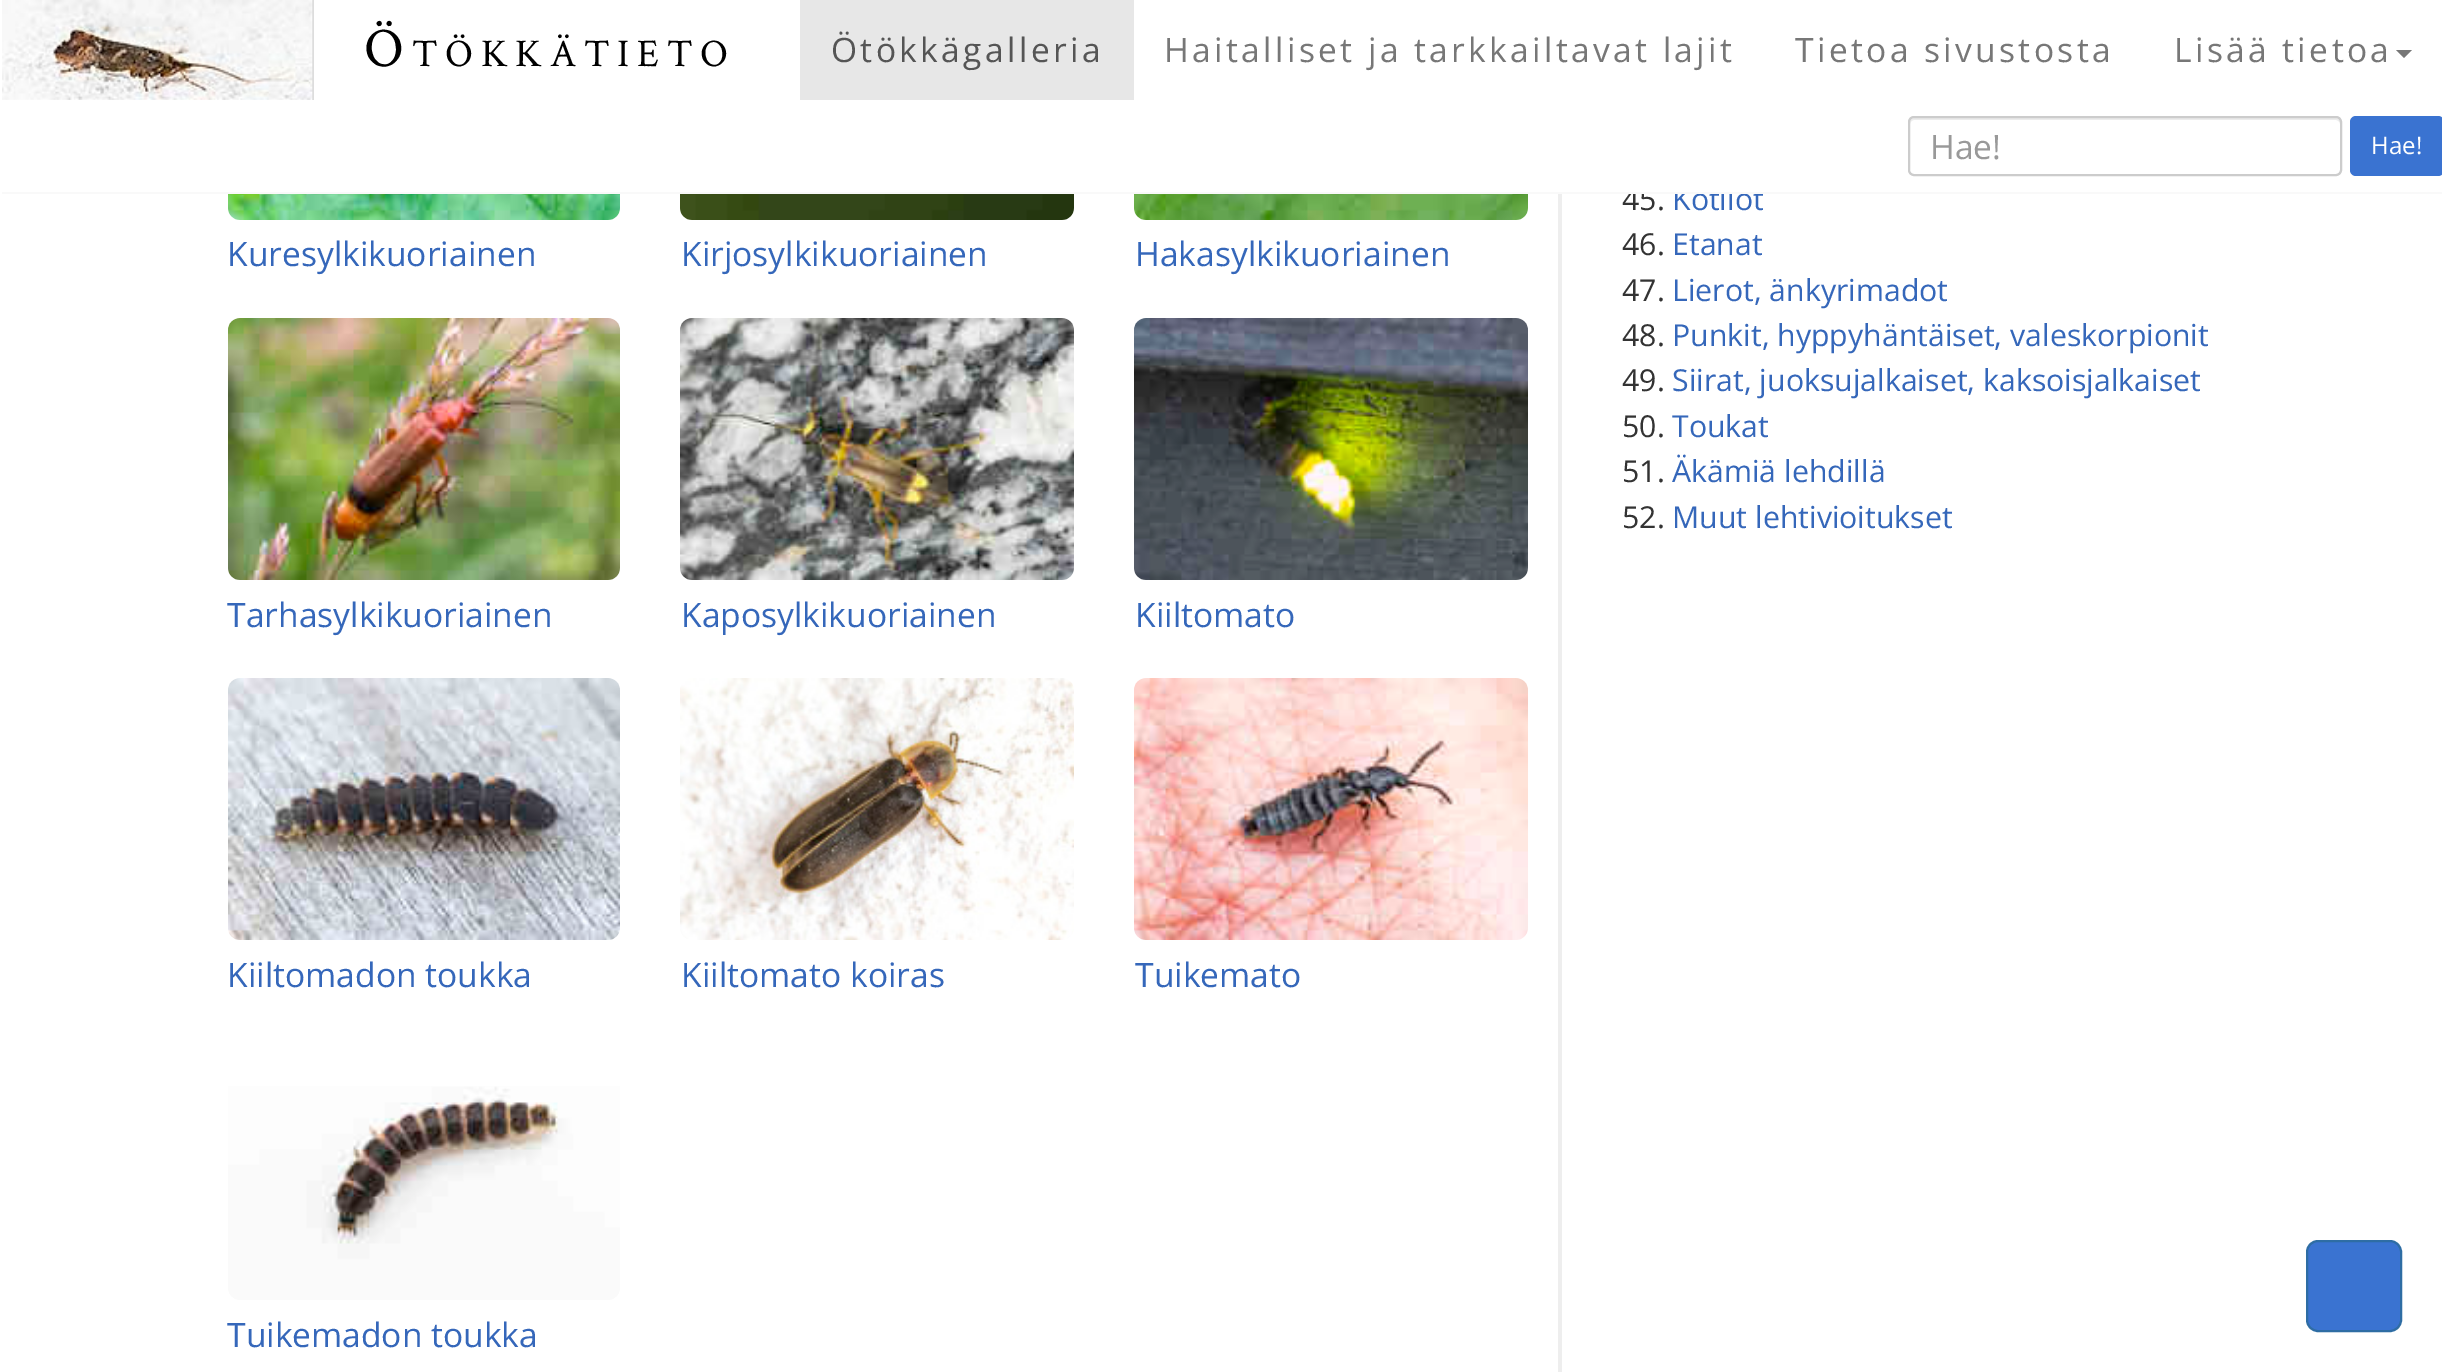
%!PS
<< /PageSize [2442 1372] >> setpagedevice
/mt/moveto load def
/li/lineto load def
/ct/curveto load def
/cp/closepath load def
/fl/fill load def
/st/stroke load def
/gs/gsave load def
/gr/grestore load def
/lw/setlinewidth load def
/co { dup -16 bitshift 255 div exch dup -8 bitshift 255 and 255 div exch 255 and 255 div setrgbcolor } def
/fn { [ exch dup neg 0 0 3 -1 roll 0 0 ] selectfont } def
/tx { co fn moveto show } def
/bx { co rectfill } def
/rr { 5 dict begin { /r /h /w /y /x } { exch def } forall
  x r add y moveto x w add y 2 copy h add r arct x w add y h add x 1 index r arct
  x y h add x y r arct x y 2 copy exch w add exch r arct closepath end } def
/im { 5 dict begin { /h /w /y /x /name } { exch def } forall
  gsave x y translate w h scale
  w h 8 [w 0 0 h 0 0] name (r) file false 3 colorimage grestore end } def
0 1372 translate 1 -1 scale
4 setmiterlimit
0 0 2442 1372 16#FFFFFF bx
312 0 2 100 16#DDDDDD bx
(media/1.raw) 2 0 311 100 im
800 0 334 100 16#E7E7E7 bx
16#777777 co
2396 50 mt 2412 50 li 2404 58 li cp fl
16#ECECEC co
1914 120 mt 2336 120 li 2338 120 2340 122 2340 124 ct 2340 122 li 2340 120 2338 118 2336 118 ct 1914 118 li 1912 118 1910 120 1910 122 ct 1910 124 li 1910 122 1912 120 1914 120 ct cp fl
16#CCCCCC co
2 lw
1909 117 432 58 5 rr st
16#3A73D1 co
2350 116 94 60 6 rr fl
1558 194 4 1178 16#EEEEEE bx
(media/2.raw) 228 194 392 26 im
(media/3.raw) 680 194 394 26 im
(media/4.raw) 1134 194 394 26 im
(media/5.raw) 228 318 392 262 im
(media/6.raw) 680 318 394 262 im
(media/7.raw) 1134 318 394 262 im
(media/8.raw) 228 678 392 262 im
(media/9.raw) 680 678 394 262 im
(media/10.raw) 1134 678 394 262 im
(media/11.raw) 228 1086 392 214 im
16#3A73D1 co
2307 1241 94 90 11 rr gs fl gr
16#2E6DA4 co
st
/CrimsonText-Regular 56 fn
16#000000 co
364 66 mt 7.75 0 (Ö) ashow
/CrimsonText-Regular 39.25 fn
412 66 mt 7.75 0 (TÖKKÄTIETO) ashow
/OpenSans-Regular 33.6 fn
16#555555 co
831 62 mt 3.35 0 (Ötökkägalleria) ashow
16#777777 co
1164 62 mt 3.35 0 (Haitalliset ja tarkkailtavat lajit) ashow
1795 62 mt 3.35 0 (Tietoa sivustosta) ashow
2174 62 mt 3.35 0 (Lisää tietoa) ashow
(Hae!) 1930 159 /OpenSans-Regular 33.6 16#999999 tx
(Hae!) 2371 154 /OpenSans-Regular 24 16#FFFFFF tx
(Kuresylkikuoriainen) 227 266 /OpenSans-Regular 33.6 16#3567BA tx
(Kirjosylkikuoriainen) 681 266 /OpenSans-Regular 33.6 16#3567BA tx
(Hakasylkikuoriainen) 1135 266 /OpenSans-Regular 33.6 16#3567BA tx
(Tarhasylkikuoriainen) 227 627 /OpenSans-Regular 33.6 16#3567BA tx
(Kaposylkikuoriainen) 681 627 /OpenSans-Regular 33.6 16#3567BA tx
(Kiiltomato) 1135 627 /OpenSans-Regular 33.6 16#3567BA tx
(Kiiltomadon toukka) 227 987 /OpenSans-Regular 33.6 16#3567BA tx
(Kiiltomato koiras) 681 987 /OpenSans-Regular 33.6 16#3567BA tx
(Tuikemato) 1135 987 /OpenSans-Regular 33.6 16#3567BA tx
(Tuikemadon toukka) 227 1347 /OpenSans-Regular 33.6 16#3567BA tx
(45.) 1622 210 /OpenSans-Regular 30.25 16#333333 tx
(Kotilot) 1672 210 /OpenSans-Regular 30.25 16#3567BA tx
2 192 2440 2 16#F9F9F9 bx
1630 187 129 5 16#FFFFFF bx
(46.) 1622 255 /OpenSans-Regular 30.25 16#333333 tx
(Etanat) 1672 255 /OpenSans-Regular 30.25 16#3567BA tx
(47.) 1622 301 /OpenSans-Regular 30.25 16#333333 tx
(Lierot, änkyrimadot) 1672 301 /OpenSans-Regular 30.25 16#3567BA tx
(48.) 1622 346 /OpenSans-Regular 30.25 16#333333 tx
(Punkit, hyppyhäntäiset, valeskorpionit) 1672 346 /OpenSans-Regular 30.25 16#3567BA tx
(49.) 1622 391 /OpenSans-Regular 30.25 16#333333 tx
(Siirat, juoksujalkaiset, kaksoisjalkaiset) 1672 391 /OpenSans-Regular 30.25 16#3567BA tx
(50.) 1622 437 /OpenSans-Regular 30.25 16#333333 tx
(Toukat) 1672 437 /OpenSans-Regular 30.25 16#3567BA tx
(51.) 1622 482 /OpenSans-Regular 30.25 16#333333 tx
(Äkämiä lehdillä) 1672 482 /OpenSans-Regular 30.25 16#3567BA tx
(52.) 1622 528 /OpenSans-Regular 30.25 16#333333 tx
(Muut lehtivioitukset) 1672 528 /OpenSans-Regular 30.25 16#3567BA tx
showpage
